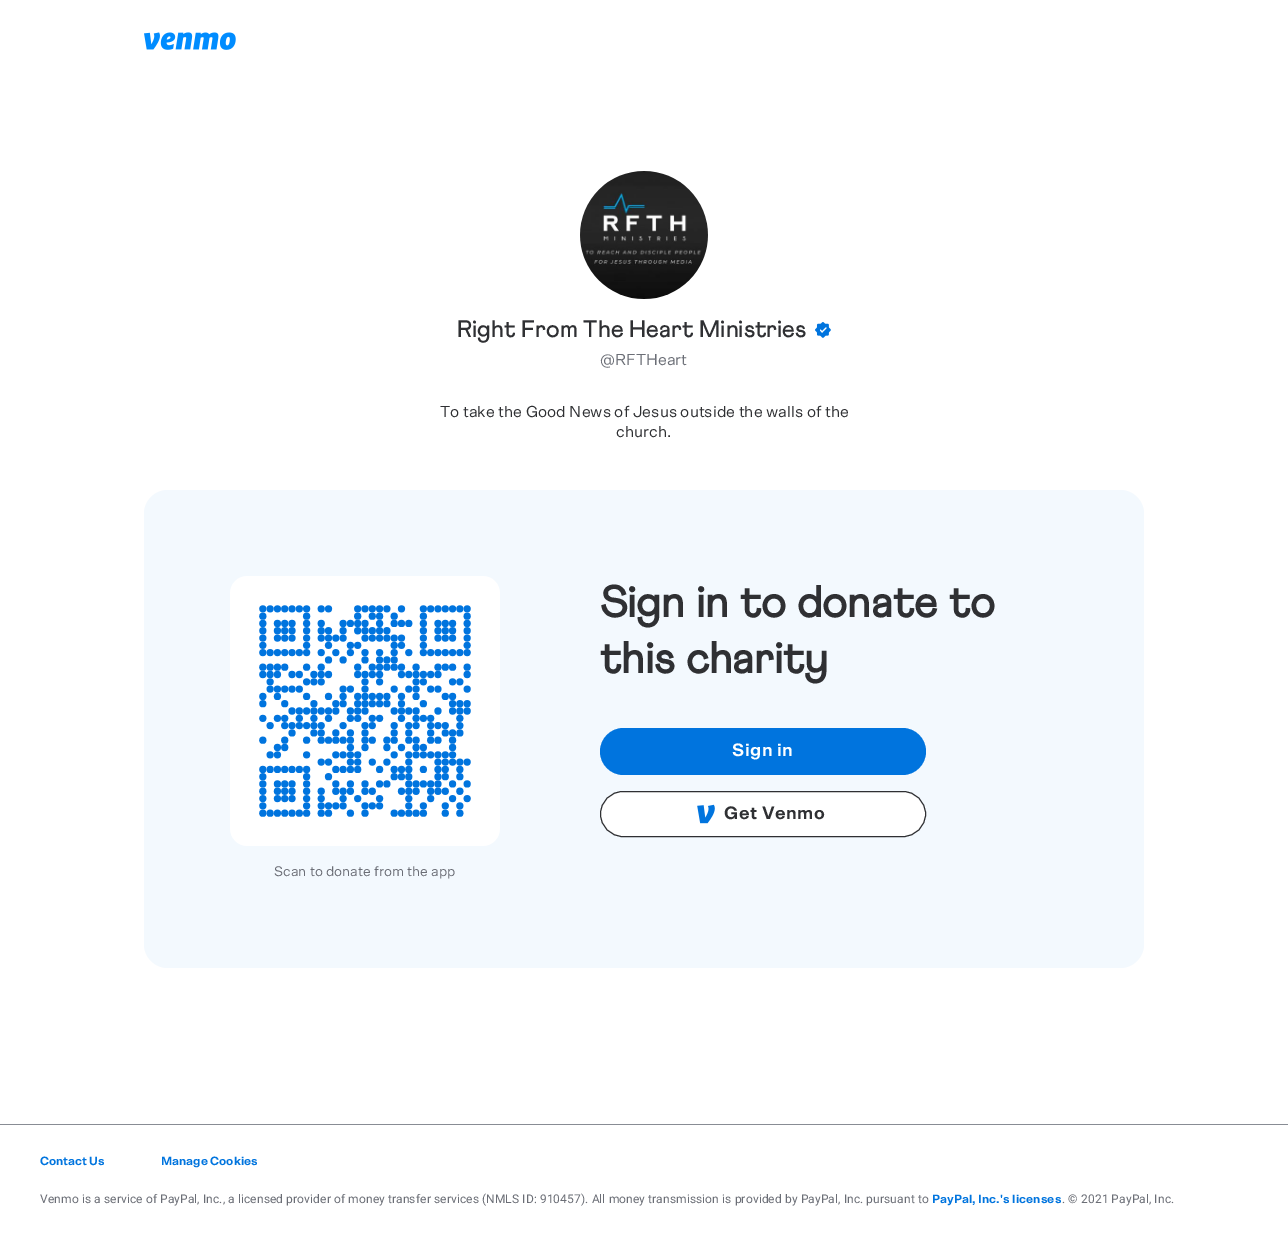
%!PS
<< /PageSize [1288 1233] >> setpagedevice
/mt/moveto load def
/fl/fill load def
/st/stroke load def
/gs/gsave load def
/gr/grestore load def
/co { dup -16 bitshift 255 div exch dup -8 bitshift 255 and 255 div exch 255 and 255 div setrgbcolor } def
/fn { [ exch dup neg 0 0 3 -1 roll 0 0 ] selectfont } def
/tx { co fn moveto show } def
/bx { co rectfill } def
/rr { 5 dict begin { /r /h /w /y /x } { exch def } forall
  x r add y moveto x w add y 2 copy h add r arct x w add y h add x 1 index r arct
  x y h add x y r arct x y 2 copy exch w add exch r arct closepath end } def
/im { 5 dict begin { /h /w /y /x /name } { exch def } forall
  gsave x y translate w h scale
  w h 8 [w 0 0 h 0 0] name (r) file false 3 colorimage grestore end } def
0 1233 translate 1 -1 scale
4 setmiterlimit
0 0 1288 1233 16#FFFFFF bx
(media/1.raw) 144 32 92 18 im
(media/2.raw) 580 171 128 128 im
(media/3.raw) 815 322 16 16 im
16#F3F9FE co
144 490 1000 478 24 rr fl
16#0074DE co
600 728 326 47 23.5 rr fl
16#FFFFFF co
600.5 791.5 325 45 22.5 rr gs fl gr
16#2F3033 co
st
(media/4.raw) 697 804 18 20 im
(media/5.raw) 230 576 270 270 im
0 1124 1288 1 16#888C94 bx
(Right From The Heart Ministries) 457 337 /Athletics-Medium 24 16#2F3033 tx
(@RFTHeart) 600 365 /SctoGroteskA-Regular 16 16#6B6E76 tx
(To take the Good News of Jesus outside the walls of the) 440 417 /SctoGroteskA-Regular 16 16#2F3033 tx
(church.) 616 437 /SctoGroteskA-Regular 16 16#2F3033 tx
(Sign in to donate to) 600 617 /Athletics-Bold 44 16#2F3033 tx
(this charity) 600 673 /Athletics-Bold 44 16#2F3033 tx
/SctoGroteskA-Bold 18 fn
16#FFFFFF co
732 756 mt .5 0 (Sign in) ashow
16#2F3033 co
724 819 mt .5 0 (Get Venmo) ashow
(Scan to donate from the app) 274 876 /SctoGroteskA-Regular 14 16#6B6E76 tx
(Contact Us) 40 1165 /SctoGroteskA-Bold 12 16#0074DE tx
(Manage Cookies) 161 1165 /SctoGroteskA-Bold 12 16#0074DE tx
/Roboto-Regular 12 fn
16#6B6E76 co
40 1203 mt .11 0 (Venmo is a service of PayPal, Inc., a licensed provider of money transfer services \(NMLS ID: 910457\). All money transmission is provided by PayPal, Inc. pursuant to) ashow
/SctoGroteskA-Bold 12 fn
16#0074DE co
932 1203 mt .11 0 (PayPal, Inc.'s licenses) ashow
/Roboto-Regular 12 fn
16#6B6E76 co
1062 1203 mt .11 0 (. © 2021 PayPal, Inc.) ashow
showpage
